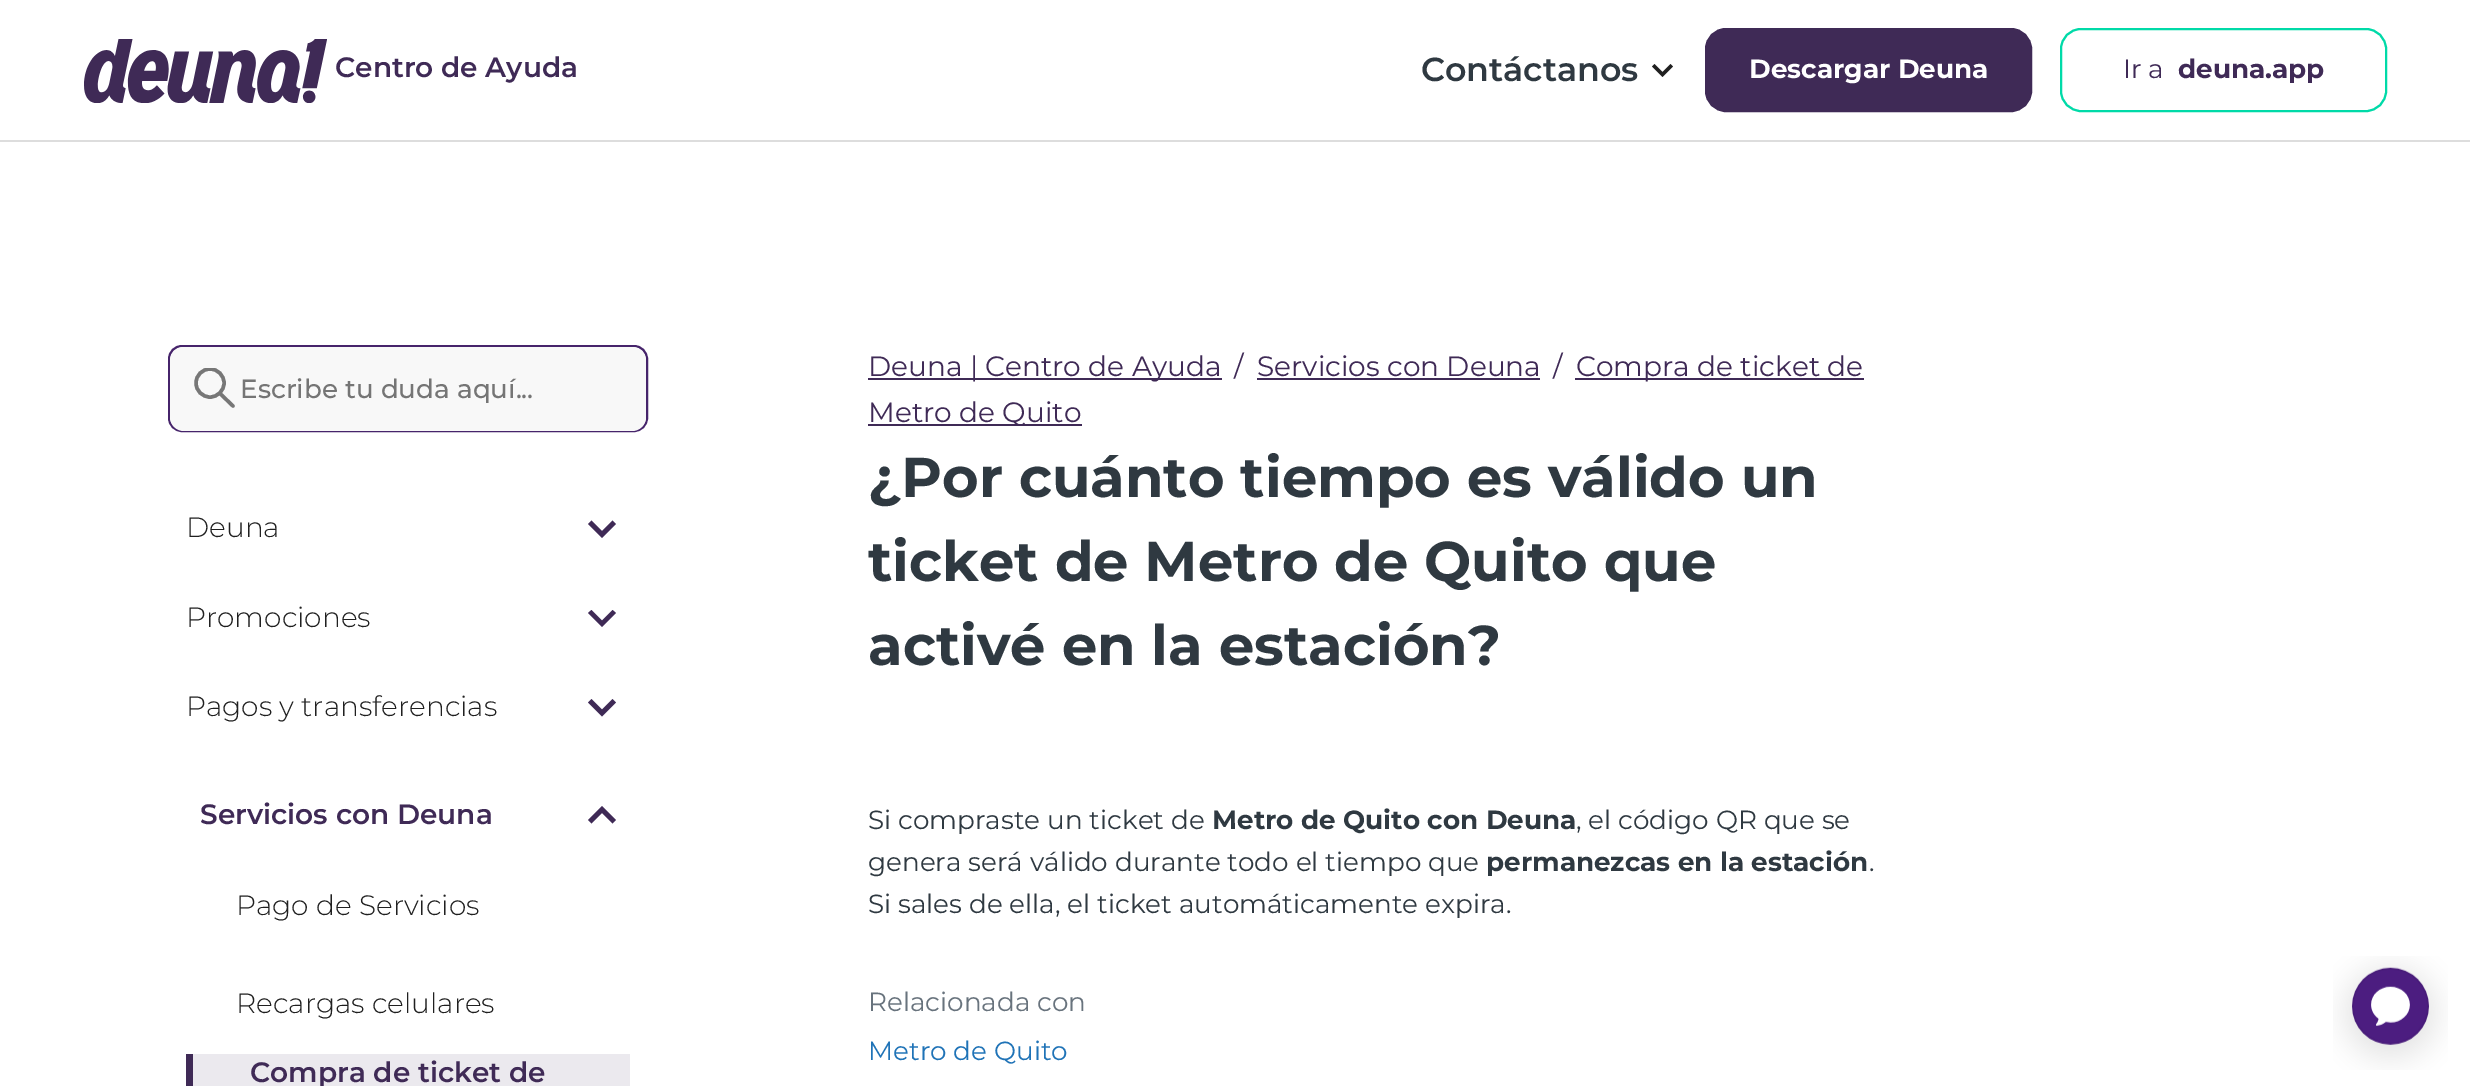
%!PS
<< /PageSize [2470 1086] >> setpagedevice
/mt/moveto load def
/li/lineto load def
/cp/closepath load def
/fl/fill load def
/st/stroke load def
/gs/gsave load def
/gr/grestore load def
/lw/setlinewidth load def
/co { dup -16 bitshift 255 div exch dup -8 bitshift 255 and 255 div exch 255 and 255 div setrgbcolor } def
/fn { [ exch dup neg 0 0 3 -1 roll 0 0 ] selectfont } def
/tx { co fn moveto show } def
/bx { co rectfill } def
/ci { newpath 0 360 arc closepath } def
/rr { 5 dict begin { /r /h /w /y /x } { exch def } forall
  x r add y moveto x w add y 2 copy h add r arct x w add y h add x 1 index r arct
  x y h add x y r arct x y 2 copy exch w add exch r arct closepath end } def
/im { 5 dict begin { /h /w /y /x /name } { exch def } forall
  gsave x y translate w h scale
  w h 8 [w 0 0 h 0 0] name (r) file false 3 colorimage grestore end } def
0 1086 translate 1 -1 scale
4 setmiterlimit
0 0 2470 1086 16#FFFFFF bx
(media/1.raw) 84 39 243 64 im
16#202020 co
1654.5 64 mt 1662.5 72 li 1670.5 64 li 1673 66.5 li 1662.5 77 li 1652 66.5 li cp fl
16#3F2A56 co
1707 30 323 80 19 rr gs fl gr
4 lw
st
16#00DAA8 co
2 lw
2061 29 325 82 20 rr st
0 140 2470 2 16#DDDDDD bx
16#46246B co
169 346 478 85 13 rr st
16#F8F8F8 co
170 347 476 84 14 rr fl
gs
194 368 42 42 rectclip
16#777777 co
3.5 lw
210 383 14 ci st
gr
16#777777 co
3.5 lw
1 setlinecap
233 406 mt 220.5 394 li st
16#3F2A56 co
591.5 520.5 mt 602 531 li 612.5 520.5 li 616 524 li 602 538 li 588 524 li cp fl
591.5 610 mt 602 620.5 li 612.5 610 li 616 613 li 602 627 li 588 613 li cp fl
591.5 699 mt 602 709.5 li 612.5 699 li 616 702.5 li 602 716.5 li 588 702.5 li cp fl
612.5 823.5 mt 602 813 li 591.5 823.5 li 588 820 li 602 806 li 616 820 li cp fl
193 1054 437 32 16#EBE9EE bx
186 1054 7 32 16#3F2A56 bx
868 378 354 2 16#3F2A56 bx
1257 378 283 2 16#3F2A56 bx
1575 378 289 2 16#3F2A56 bx
868 424 214 2 16#3F2A56 bx
(media/2.raw) 2333 956 115 114 im
(Centro de Ayuda) 335 77 /Montserrat-SemiBold 28 16#3F2A56 tx
(Contáctanos) 1421 81 /Montserrat-SemiBold 33.25 16#2F3941 tx
(Descargar Deuna) 1749 78 /Montserrat-Bold 26.25 16#FFFFFF tx
(Ir a) 2123 78 /Montserrat-Regular 26.25 16#3F2A56 tx
(deuna.app) 2178 78 /Montserrat-Bold 26.25 16#3F2A56 tx
(Escribe tu duda aquí...) 240 398 /Montserrat-Medium 26.25 16#757575 tx
(Deuna) 186 537 /Montserrat-Light 28 16#202020 tx
(Promociones) 186 627 /Montserrat-Light 28 16#202020 tx
(Pagos y transferencias) 186 716 /Montserrat-Light 28 16#202020 tx
(Servicios con Deuna) 200 824 /Montserrat-SemiBold 28 16#3F2A56 tx
(Pago de Servicios) 236 915 /Montserrat-Light 28 16#202020 tx
(Recargas celulares) 236 1013 /Montserrat-Light 28 16#202020 tx
(Compra de ticket de) 250 1082 /Montserrat-SemiBold 28 16#3F2A56 tx
(Deuna | Centro de Ayuda) 868 376 /Montserrat-Regular 28 16#3F2A56 tx
(/) 1234 376 /Montserrat-Regular 28 16#3F2A56 tx
(Servicios con Deuna) 1257 376 /Montserrat-Regular 28 16#3F2A56 tx
(/) 1553 376 /Montserrat-Regular 28 16#3F2A56 tx
(Compra de ticket de) 1576 376 /Montserrat-Regular 28 16#3F2A56 tx
(Metro de Quito) 868 422 /Montserrat-Regular 28 16#3F2A56 tx
(¿Por cuánto tiempo es válido un) 868 497 /Montserrat-Bold 56 16#2F3941 tx
(ticket de Metro de Quito que) 868 581 /Montserrat-Bold 56 16#2F3941 tx
(activé en la estación?) 868 665 /Montserrat-Bold 56 16#2F3941 tx
(Si compraste un ticket de) 868 829 /Montserrat-Regular 26.25 16#2F3941 tx
(Metro de Quito con Deuna) 1212 829 /Montserrat-Bold 26.25 16#2F3941 tx
(, el código QR que se) 1576 829 /Montserrat-Regular 26.25 16#2F3941 tx
(genera será válido durante todo el tiempo que) 868 871 /Montserrat-Regular 26.25 16#2F3941 tx
(permanezcas en la estación) 1486 871 /Montserrat-Bold 26.25 16#2F3941 tx
(.) 1869 871 /Montserrat-Regular 26.25 16#2F3941 tx
(Si sales de ella, el ticket automáticamente expira.) 868 913 /Montserrat-Regular 26.25 16#2F3941 tx
(Relacionada con) 868 1011 /Montserrat-Regular 26.25 16#68737D tx
(Metro de Quito) 868 1060 /Montserrat-Regular 26.25 16#1F73B7 tx
showpage
